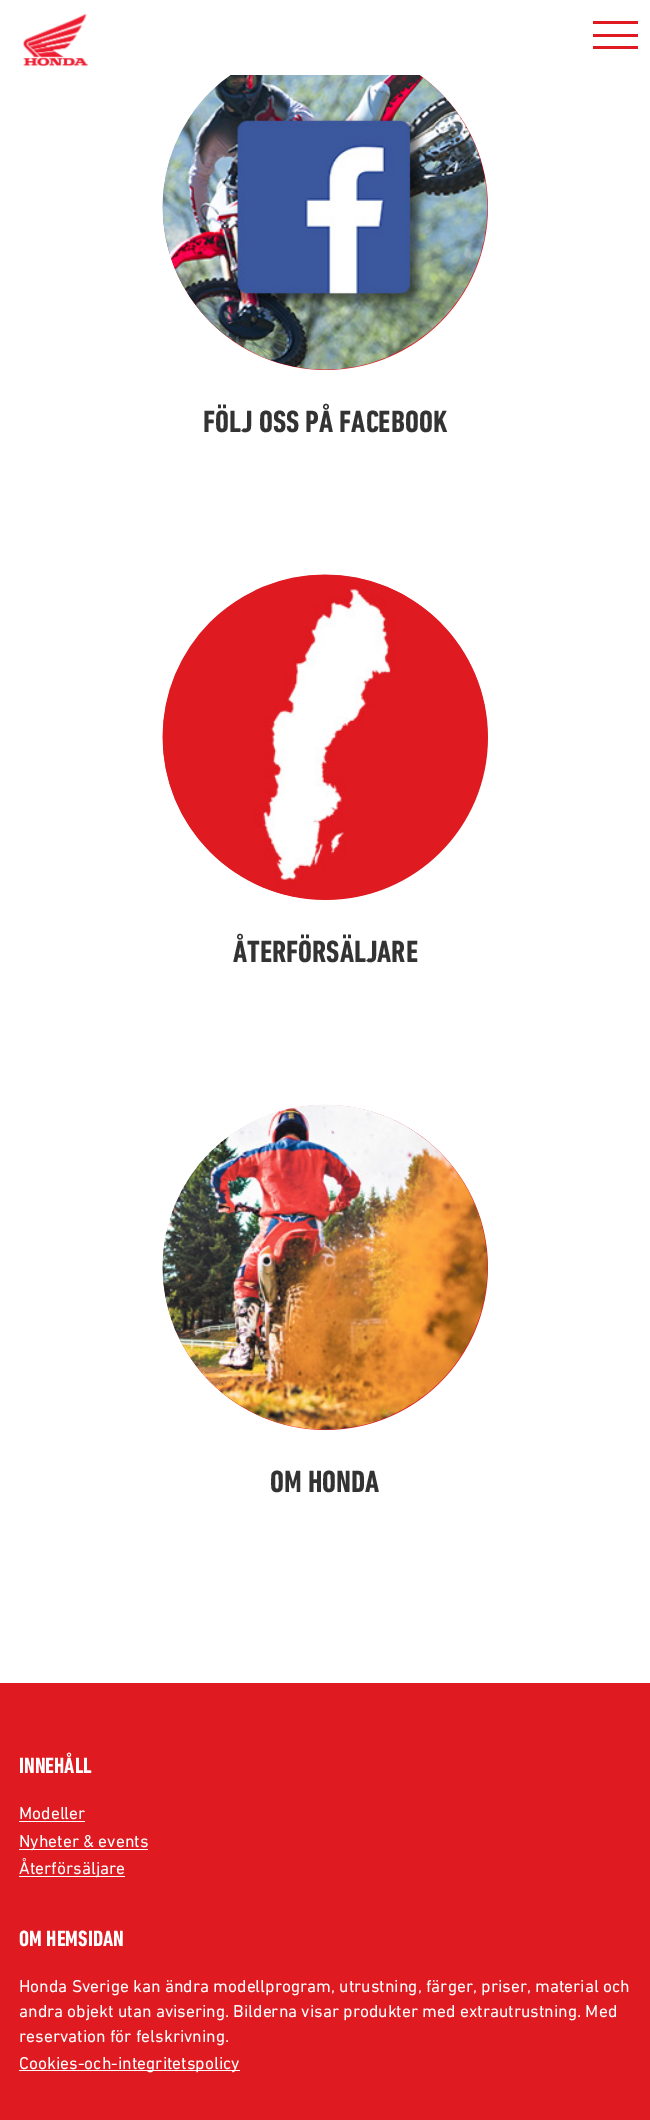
%!PS
<< /PageSize [650 2120] >> setpagedevice
/fl/fill load def
/co { dup -16 bitshift 255 div exch dup -8 bitshift 255 and 255 div exch 255 and 255 div setrgbcolor } def
/fn { [ exch dup neg 0 0 3 -1 roll 0 0 ] selectfont } def
/tx { co fn moveto show } def
/bx { co rectfill } def
/ci { newpath 0 360 arc closepath } def
/im { 5 dict begin { /h /w /y /x /name } { exch def } forall
  gsave x y translate w h scale
  w h 8 [w 0 0 h 0 0] name (r) file false 3 colorimage grestore end } def
0 2120 translate 1 -1 scale
4 setmiterlimit
0 0 650 2120 16#FFFFFF bx
16#DF1A21 co
325.5 207.5 162.5 ci fl
231 45 189 30 16#FFFFFF bx
(media/1.raw) 23 13 66 54 im
593 34 45 3 16#DF1A21 bx
593 21 45 3 16#DF1A21 bx
593 46 45 3 16#DF1A21 bx
(media/2.raw) 162 75 326 295 im
325.5 737.5 162.5 ci fl
(media/3.raw) 162 574 326 326 im
325.5 1267.5 162.5 ci fl
(media/4.raw) 162 1104 326 326 im
0 1683 650 437 16#DF1A21 bx
19 1821 66 1 16#FFFFFF bx
19 1849 129 1 16#FFFFFF bx
19 1876 106 1 16#FFFFFF bx
19 2070 221 1 16#FFFFFF bx
(FÖLJ OSS PÅ FACEBOOK) 203 432 /DINNext-Bold 31.25 16#333333 tx
(ÅTERFÖRSÄLJARE) 233 962 /DINNext-Bold 31.25 16#333333 tx
(OM HONDA) 270 1492 /DINNext-Bold 31.25 16#333333 tx
(INNEHÅLL) 19 1773 /DINNext-Bold 22.5 16#FFFFFF tx
(Modeller) 19 1819 /DINNext-Regular 17.5 16#FFFFFF tx
(Nyheter & events) 19 1847 /DINNext-Regular 17.5 16#FFFFFF tx
(Återförsäljare) 19 1874 /DINNext-Regular 17.5 16#FFFFFF tx
(OM HEMSIDAN) 19 1946 /DINNext-Bold 22.5 16#FFFFFF tx
(Honda Sverige kan ändra modellprogram, utrustning, färger, priser, material och) 19 1992 /DINNext-Regular 17.5 16#FFFFFF tx
(andra objekt utan avisering. Bilderna visar produkter med extrautrustning. Med) 19 2017 /DINNext-Regular 17.5 16#FFFFFF tx
(reservation för felskrivning.) 19 2042 /DINNext-Regular 17.5 16#FFFFFF tx
(Cookies-och-integritetspolicy) 19 2069 /DINNext-Regular 17.5 16#FFFFFF tx
showpage
